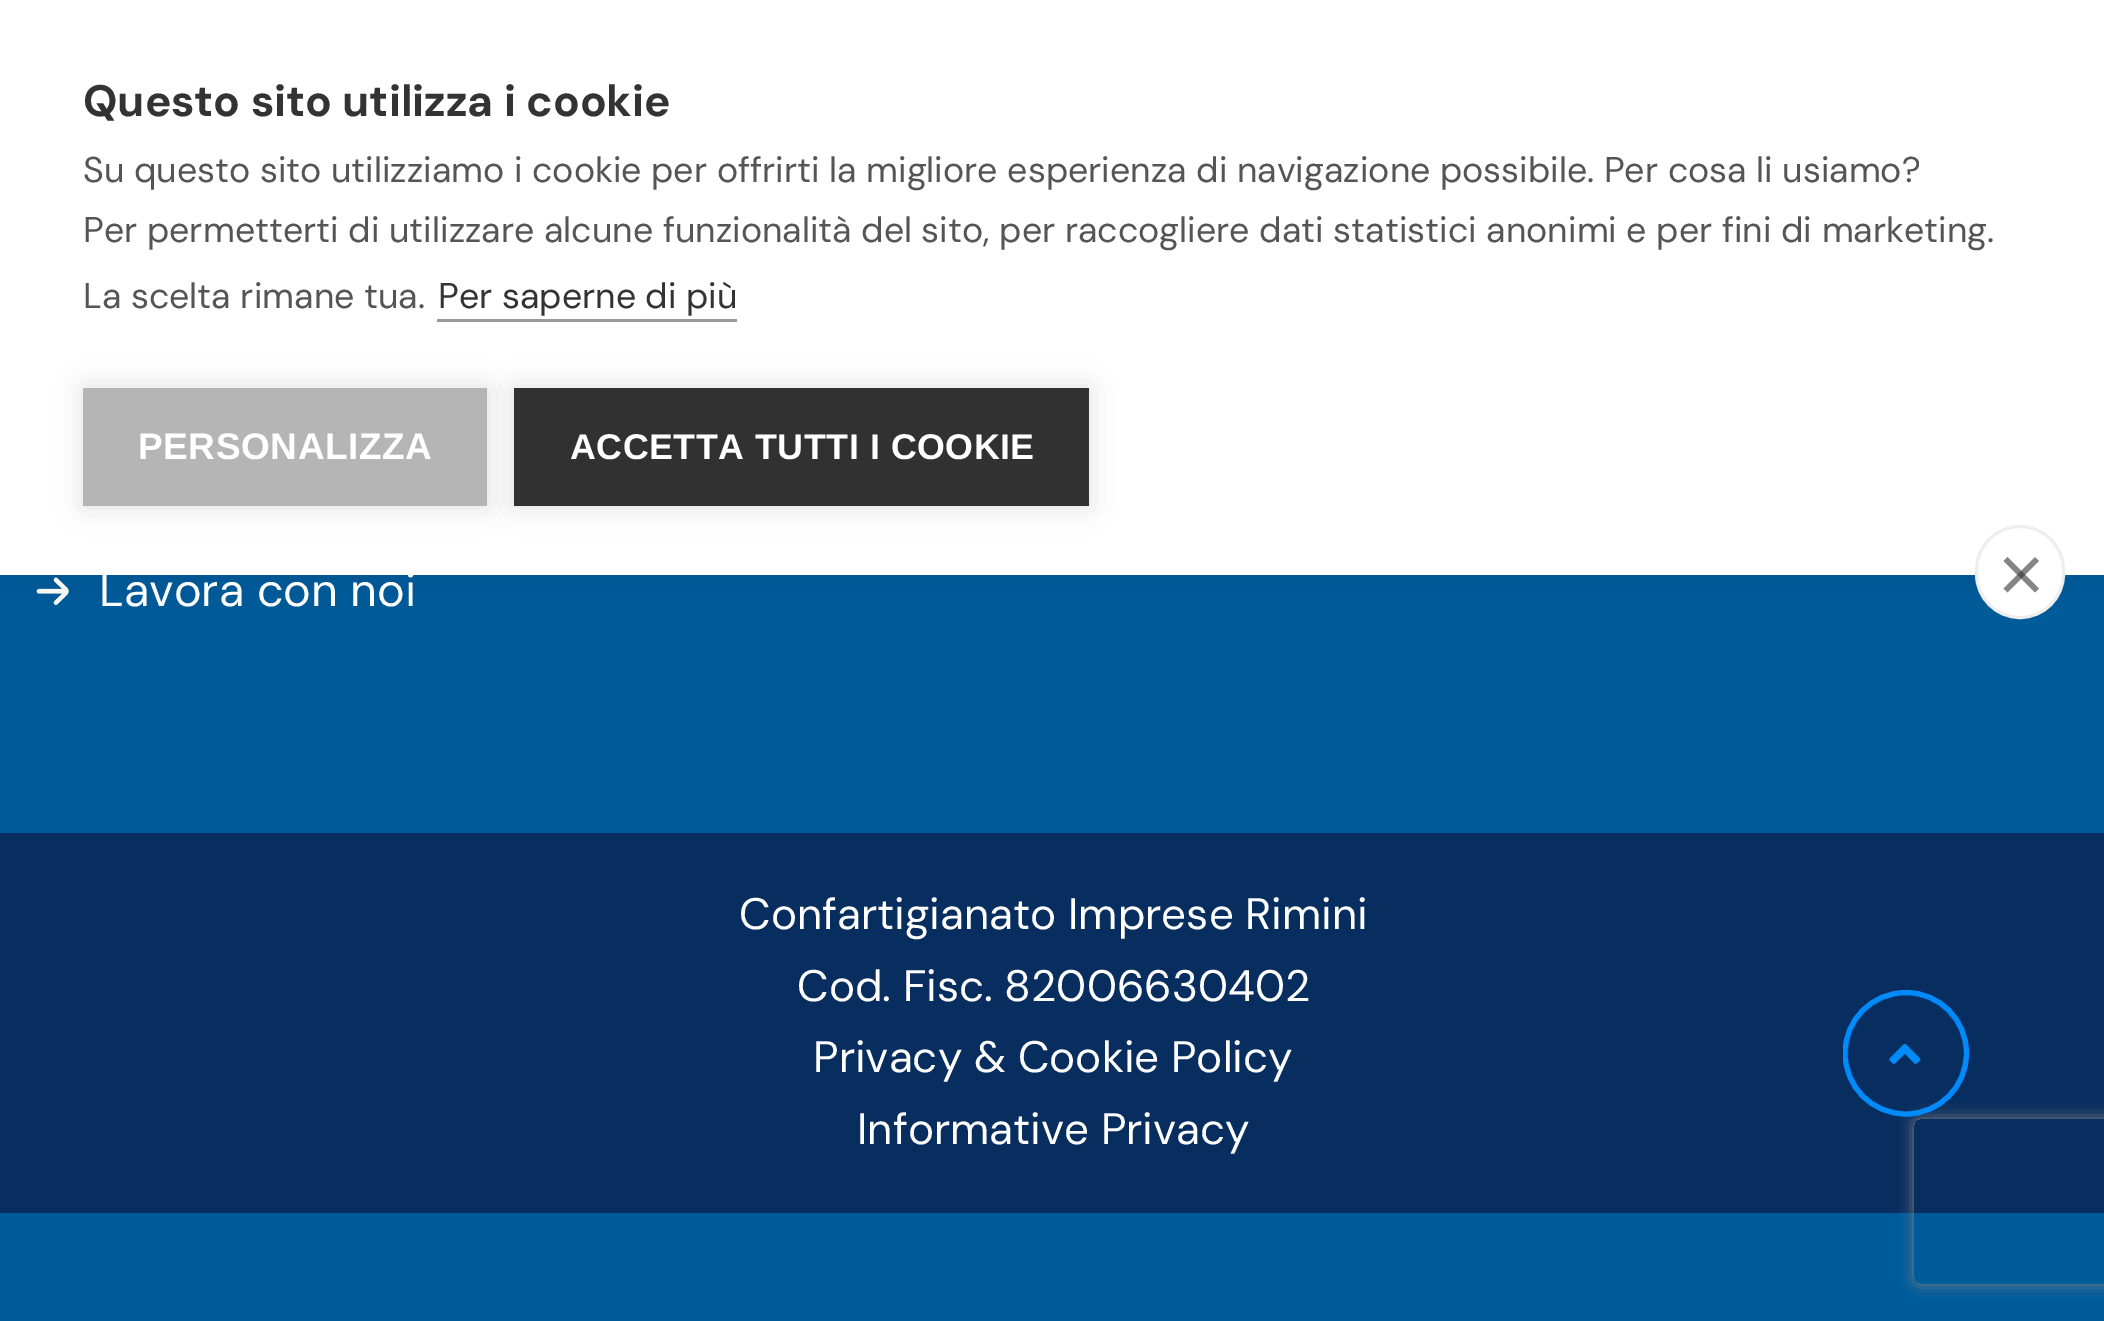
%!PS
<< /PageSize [2104 1321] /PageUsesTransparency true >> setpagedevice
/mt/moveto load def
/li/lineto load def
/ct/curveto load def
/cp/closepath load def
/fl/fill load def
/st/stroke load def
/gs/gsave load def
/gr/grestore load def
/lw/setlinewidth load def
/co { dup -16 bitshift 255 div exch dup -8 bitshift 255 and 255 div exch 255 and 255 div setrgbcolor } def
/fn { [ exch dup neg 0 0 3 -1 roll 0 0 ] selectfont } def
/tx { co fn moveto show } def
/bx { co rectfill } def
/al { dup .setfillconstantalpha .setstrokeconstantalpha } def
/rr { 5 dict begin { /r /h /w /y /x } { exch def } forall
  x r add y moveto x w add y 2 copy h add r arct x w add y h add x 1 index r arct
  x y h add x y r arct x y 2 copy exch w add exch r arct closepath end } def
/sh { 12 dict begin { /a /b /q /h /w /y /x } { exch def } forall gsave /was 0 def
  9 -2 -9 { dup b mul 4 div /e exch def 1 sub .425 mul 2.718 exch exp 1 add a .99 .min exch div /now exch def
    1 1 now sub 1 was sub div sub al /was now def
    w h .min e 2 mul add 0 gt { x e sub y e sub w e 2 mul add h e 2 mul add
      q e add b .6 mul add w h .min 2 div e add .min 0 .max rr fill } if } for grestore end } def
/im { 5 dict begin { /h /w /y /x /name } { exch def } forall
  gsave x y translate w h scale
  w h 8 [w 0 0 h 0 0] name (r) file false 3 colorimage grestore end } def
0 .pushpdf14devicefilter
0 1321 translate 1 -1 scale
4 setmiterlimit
0 0 2104 1321 16#005B9B bx
(media/1.raw) 36 577 33 28 im
16#000000 co
0 0 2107 575 0 27.5 .1 sh
0 0 2104 575 16#FFFFFF bx
437 319 300 3 16#999999 bx
16#000000 co
83 388 404 118 0 14 .12 sh
83 388 404 118 16#B5B5B5 bx
16#000000 co
514 388 575 118 0 14 .12 sh
514 388 575 118 16#313131 bx
16#FFFFFF co
1976.5 526.5 87 91 43.5 rr gs fl gr
16#EEEEEE co
3 lw
st
16#858585 co
2003.5 588.5 mt 2035 557 li 2039 561 li 2007.5 592.5 li cp fl
0.6 al
16#333333 co
2007.5 557 mt 2039 588.5 li 2035 592.5 li 2003.5 561 li cp fl
1 al
0 833 2104 380 16#082E5F bx
gs
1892 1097 mt 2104 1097 li 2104 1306 li 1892 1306 li cp 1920 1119 mt 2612 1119 li 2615.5 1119 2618 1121.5 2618 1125 ct 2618 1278 li 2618 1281.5 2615.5 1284 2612 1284 ct 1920 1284 li 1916.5 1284 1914 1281.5 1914 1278 ct 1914 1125 li 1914 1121.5 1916.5 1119 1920 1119 ct cp eoclip newpath
16#808080 co
1914 1119 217 165 6 7 1 sh
gr
0.2 al
16#165DF5 co
6 lw
1846 993 120 121 60 rr st
gs
1843 990 126 127 rectclip
1 al
16#008BF9 co
5 lw
1906 992.5 mt 1939.5 992.5 1966.5 1019.5 1966.5 1053 ct 1966.5 1087 1939.5 1114 1906 1114 ct 1872 1114 1845 1087 1845 1053 ct 1845 1019.5 1872 992.5 1906 992.5 ct st
gr
1 al
(media/2.raw) 1889 1044 32 20 im
(Questo sito utilizza i cookie) 83 116 /DMSans-Bold 44 16#333333 tx
(Su questo sito utilizziamo i cookie per offrirti la migliore esperienza di navigazione possibile. Per cosa li usiamo?) 83 182 /DMSans-Regular 35.75 16#555555 tx
(Per permetterti di utilizzare alcune funzionalità del sito, per raccogliere dati statistici anonimi e per fini di marketing.) 83 242 /DMSans-Regular 35.75 16#555555 tx
(La scelta rimane tua.) 83 308 /DMSans-Regular 35.75 16#555555 tx
(Per saperne di più) 438 308 /DMSans-Regular 35.75 16#333333 tx
/LiberationSans-Bold 37 fn
16#FFFFFF co
138 459 mt .55 0 (PERSONALIZZA) ashow
/LiberationSans-Bold 35.75 fn
570 459 mt .55 0 (ACCETTA TUTTI I COOKIE) ashow
(Lavora con noi) 99 606 /DMSans-Regular 46.75 16#FFFFFF tx
(Confartigianato Imprese Rimini) 739 929 /DMSans-Regular 44 16#FFFFFF tx
(Cod. Fisc. 82006630402) 797 1001 /DMSans-Regular 44 16#FFFFFF tx
(Privacy & Cookie Policy) 813 1072 /DMSans-Regular 44 16#FFFFFF tx
(Informative Privacy) 857 1144 /DMSans-Regular 44 16#FFFFFF tx
.poppdf14devicefilter showpage
